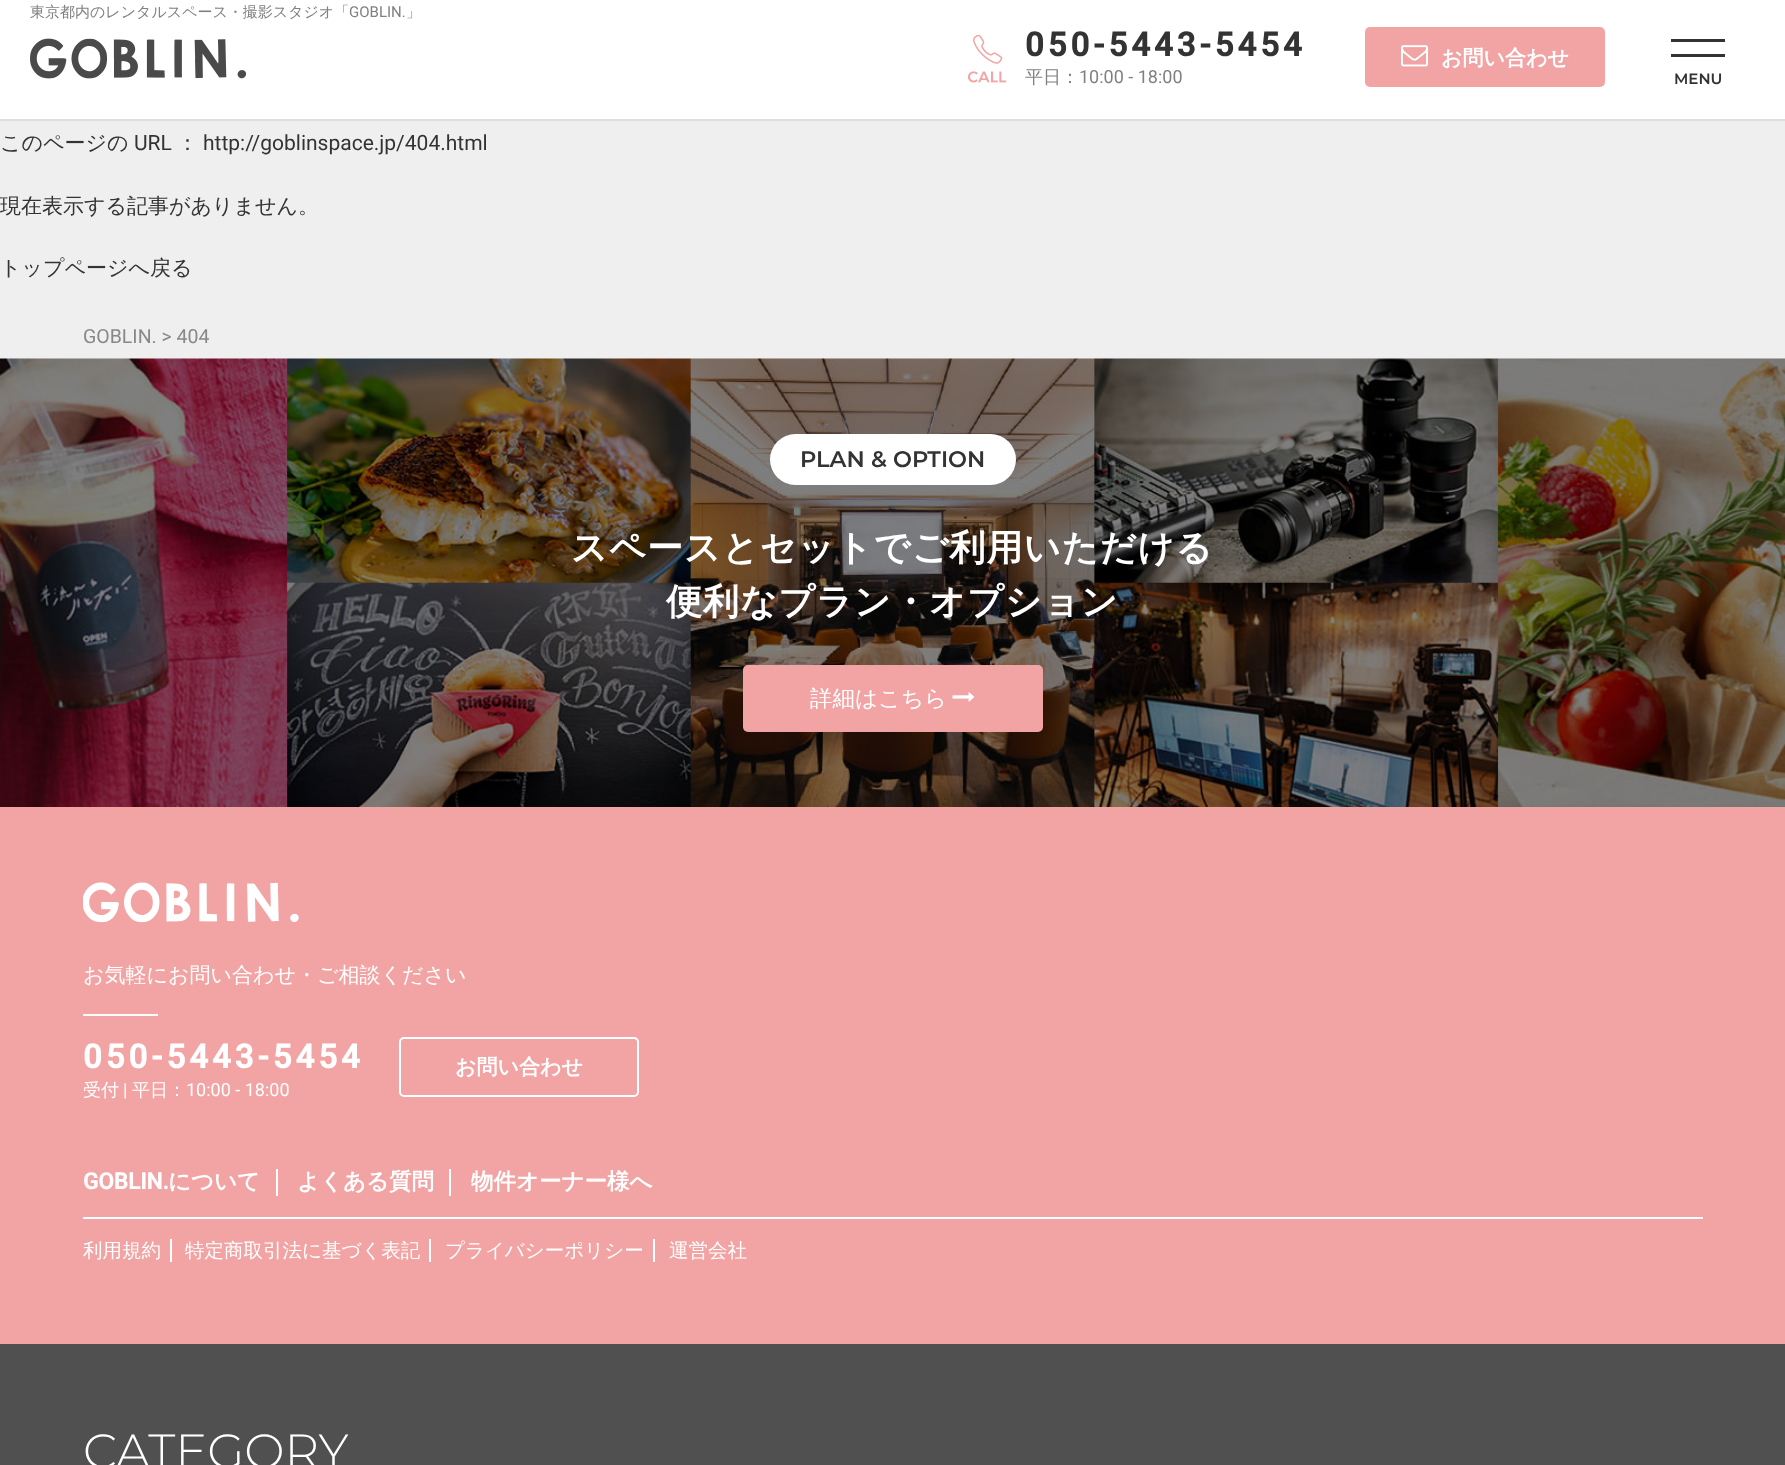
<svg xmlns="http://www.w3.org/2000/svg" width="1785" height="1465">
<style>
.a{font:500 15px WenQuanYi Zen Hei;fill:#808080}
.b{font:15px Roboto;fill:#808080}
.c{font:bold 33px Roboto;letter-spacing:4px;fill:#333}
.d{font:500 18px WenQuanYi Zen Hei;fill:#808080}
.e{font:18px Roboto;fill:#808080}
.f{font:bold 21px WenQuanYi Zen Hei;fill:#fff}
.g{font:600 15px Montserrat;fill:#333}
.h{font:500 21px WenQuanYi Zen Hei;fill:#333}
.i{font:21px Roboto;fill:#333}
.j{font:19.5px Roboto;fill:#888}
.k{font:600 22.5px Montserrat;fill:#333}
.l{font:bold 36px WenQuanYi Zen Hei;letter-spacing:1.1px;fill:#fff}
.m{font:500 22.5px WenQuanYi Zen Hei;fill:#fff}
.n{font:500 21px WenQuanYi Zen Hei;fill:#fff}
.o{font:bold 33px Roboto;letter-spacing:4px;fill:#fff}
.p{font:500 18px WenQuanYi Zen Hei;fill:#fff}
.q{font:18px Roboto;fill:#fff}
.r{font:bold 22.5px Roboto;fill:#fff}
.s{font:bold 22.5px WenQuanYi Zen Hei;fill:#fff}
.t{font:500 19.5px WenQuanYi Zen Hei;fill:#fff}
.u{font:300 48px Montserrat;fill:#fff}
</style>
<rect width="100%" height="100%" fill="#efefef"/>
<path fill="#fff" d="M0 0h1785v119H0z"/>
<path fill="#dedede" d="M0 119h1785v2H0z"/>
<image href="1.png" x="30" y="38" width="216" height="41"/>
<image href="2.png" x="968" y="35" width="39" height="48"/>
<rect fill="#f2a4a4" x="1365" y="27" width="240" height="60" rx="5"/>
<image href="3.png" x="1401" y="45" width="27" height="22"/>
<path fill="#333" d="M1671 39h54v3H1671z"/>
<path fill="#333" d="M1671 54h54v3H1671z"/>
<image href="4.png" x="0" y="358" width="1785" height="449"/>
<rect fill="#fff" x="770" y="434" width="246" height="51" rx="25.5"/>
<rect fill="#f2a4a4" x="743" y="665" width="300" height="67" rx="5"/>
<image href="5.png" x="952" y="692" width="23" height="10"/>
<path fill="#f2a4a4" d="M0 807h1785v537H0z"/>
<image href="6.png" x="83" y="882" width="216" height="41"/>
<path fill="#fff" d="M83 1014h75v2H83z"/>
<rect fill="none" stroke="#fff" stroke-width="2" x="400" y="1038" width="238" height="58" rx="4"/>
<path fill="#fff" d="M83 1217h1620v2H83z"/>
<path fill="#fff" d="M276 1169h2v27H276z"/>
<path fill="#fff" d="M449 1169h2v27H449z"/>
<path fill="#fff" d="M170 1239h2v23H170z"/>
<path fill="#fff" d="M429 1239h2v23H429z"/>
<path fill="#fff" d="M653 1239h2v23H653z"/>
<path fill="#505050" d="M0 1344h1785v121H0z"/>
<text class="a" x="30" y="17">東京都内のレンタルスペース・撮影スタジオ「</text>
<text class="b" x="349" y="17">GOBLIN.</text>
<text class="a" x="406" y="17">」</text>
<text class="c" x="1025" y="56">050-5443-5454</text>
<text class="d" x="1025" y="83">平日：</text>
<text class="e" x="1079" y="83">10:00 - 18:00</text>
<text class="f" x="1441" y="65">お問い合わせ</text>
<text class="g" x="1674" y="84">MENU</text>
<text class="h" x="0" y="150">このページの</text>
<text class="i" x="134" y="150">URL</text>
<text class="h" x="177" y="150">：</text>
<text class="i" x="203" y="150">http://goblinspace.jp/404.html</text>
<text class="h" x="0" y="213">現在表示する記事がありません。</text>
<text class="h" x="0" y="275">トップページへ戻る</text>
<text class="j" x="83" y="343">GOBLIN. &gt; 404</text>
<text class="k" x="800" y="467">PLAN &amp; OPTION</text>
<text class="l" x="571" y="560">スペースとセットでご利用いただける</text>
<text class="l" x="666" y="614">便利なプラン・オプション</text>
<text class="m" x="810" y="706">詳細はこちら</text>
<text class="n" x="83" y="982">お気軽にお問い合わせ・ご相談ください</text>
<text class="o" x="83" y="1068">050-5443-5454</text>
<text class="p" x="83" y="1096">受付</text>
<text class="q" x="123" y="1096">|</text>
<text class="p" x="132" y="1096">平日：</text>
<text class="q" x="186" y="1096">10:00 - 18:00</text>
<text class="f" x="455" y="1074">お問い合わせ</text>
<text class="r" x="83" y="1189">GOBLIN.</text>
<text class="s" x="168" y="1189">について</text>
<text class="s" x="297" y="1189">よくある質問</text>
<text class="s" x="471" y="1189">物件オーナー様へ</text>
<text class="t" x="83" y="1257">利用規約</text>
<text class="t" x="185" y="1257">特定商取引法に基づく表記</text>
<text class="t" x="445" y="1257">プライバシーポリシー</text>
<text class="t" x="669" y="1257">運営会社</text>
<text class="u" x="83" y="1468">CATEGORY</text>
</svg>
